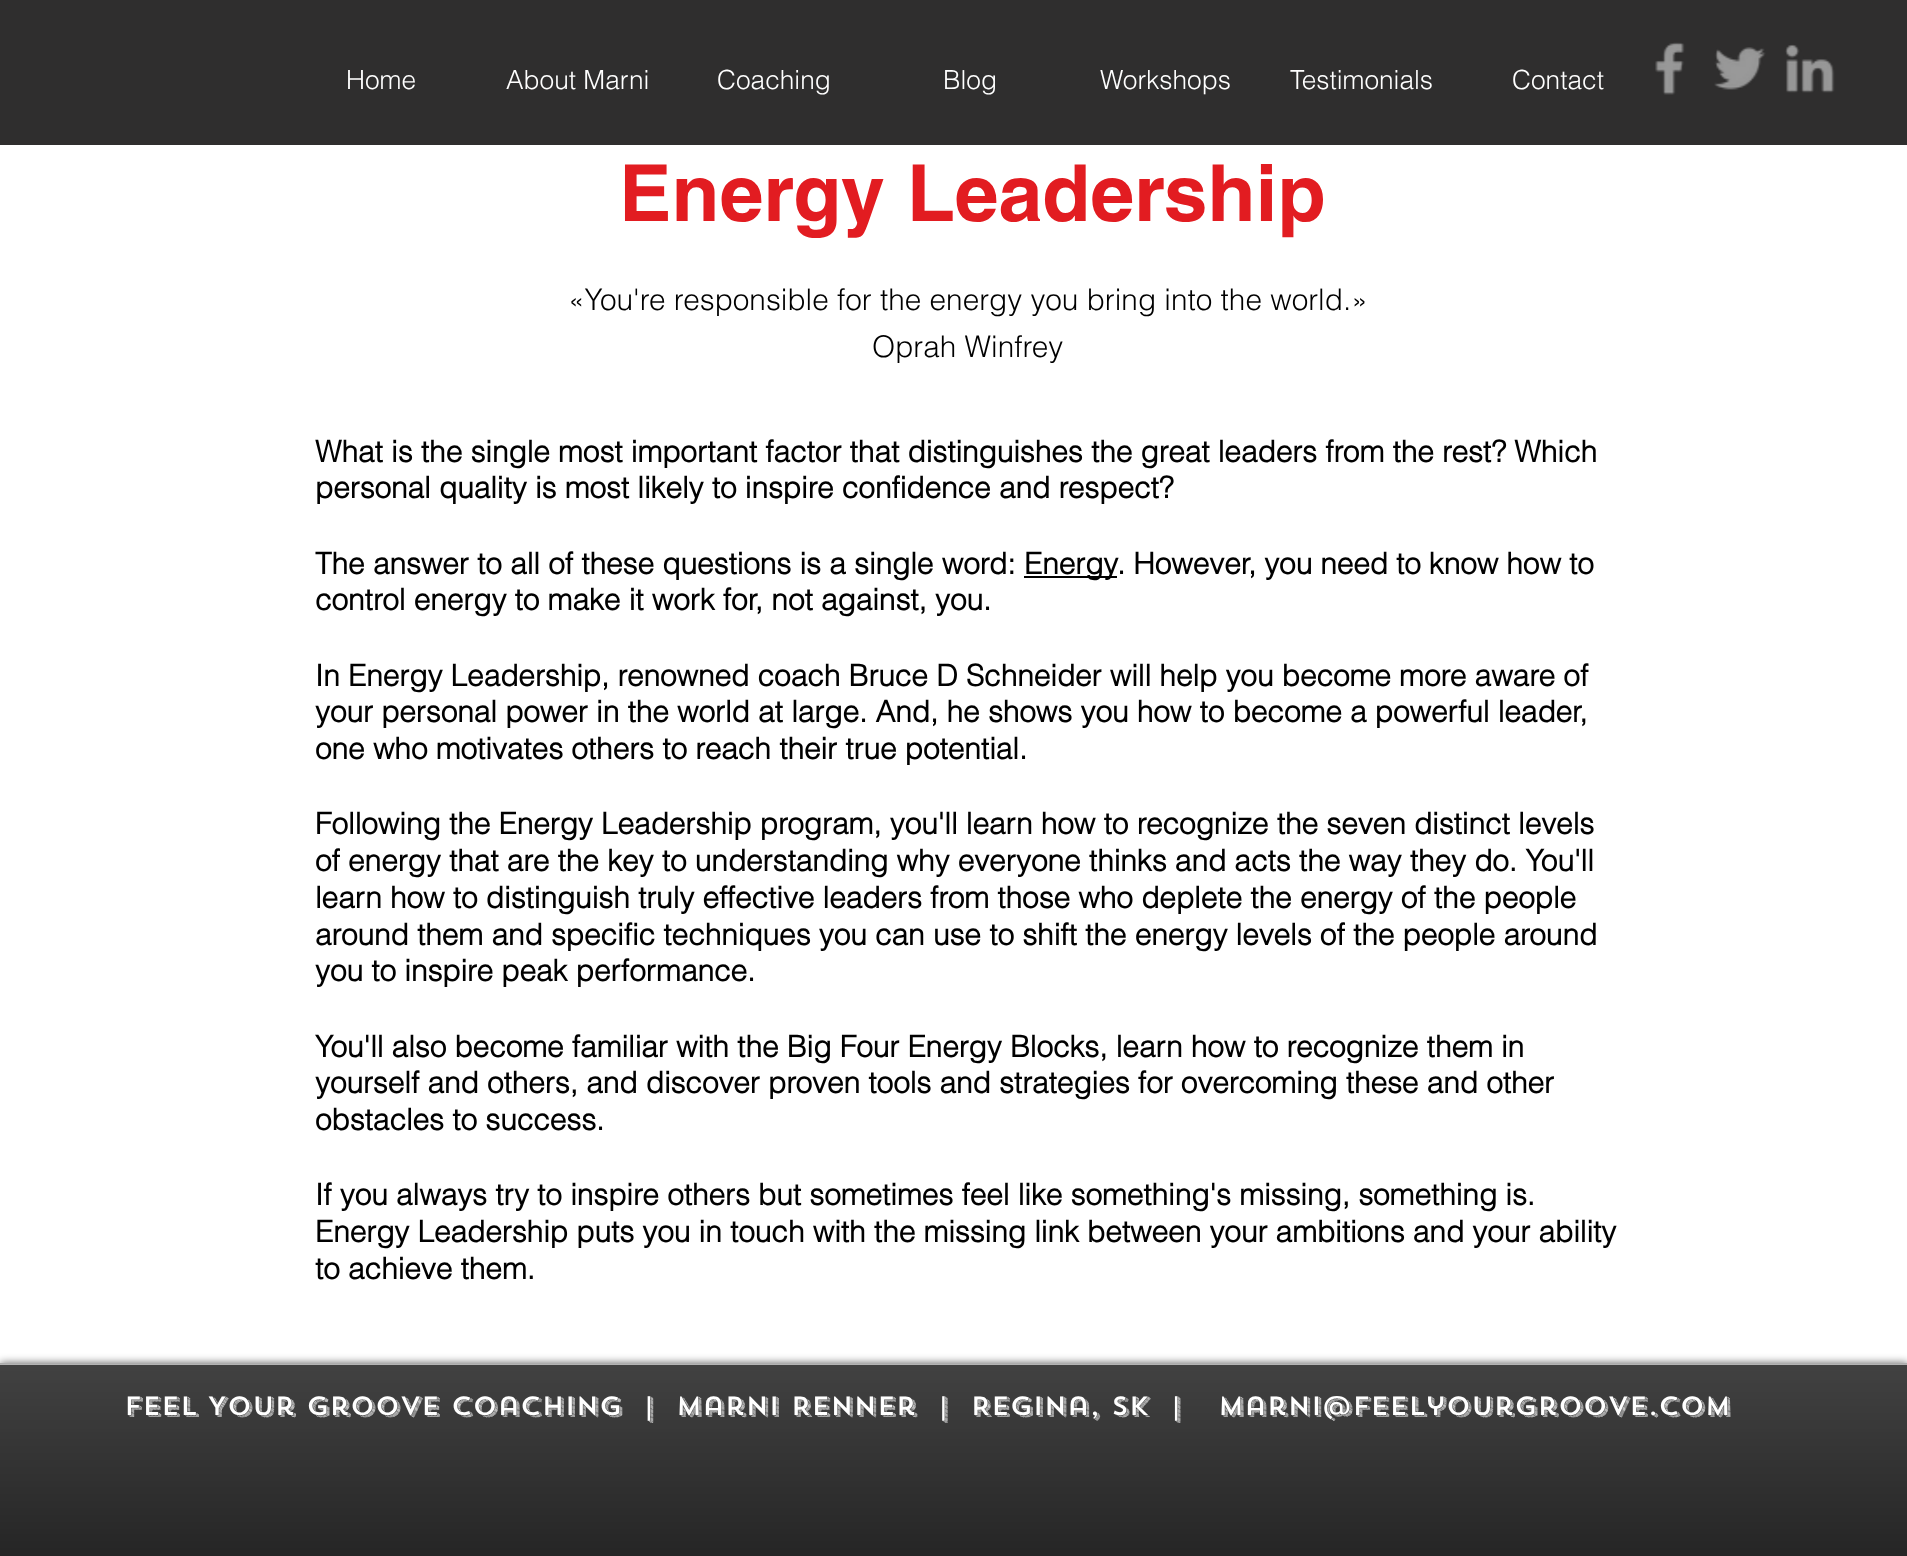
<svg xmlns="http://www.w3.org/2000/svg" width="1907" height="1556">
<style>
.a{font:300 26.25px helvetica;fill:#fff}
.b{font:bold 78.75px helvetica;fill:#e21c21}
.c{font:300 29.75px helvetica;fill:#000}
.d{font:bold 29.75px 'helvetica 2';fill:#000}
.e{font:500 26.25px 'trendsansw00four';fill:#fff}
</style>
<rect width="100%" height="100%" fill="#fff"/>
<path fill="#2f2e2e" d="M0 0h1907v145H0z"/>
<image href="1.png" x="1655" y="42" width="30" height="53"/>
<image href="2.png" x="1714" y="47" width="52" height="43"/>
<image href="3.png" x="1785" y="44" width="50" height="49"/>
<path fill="#000" d="M1024 576h93v2H1024z"/>
<path fill="#00000099" filter="blur(4.5px)" d="M0 1363h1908v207H0z"/>
<path fill="#000" d="M0 1363h1907v193H0z"/>
<image href="4.png" x="0" y="1363" width="1907" height="193"/>
<path fill="#ffffff99" d="M0 1363h1907v2H0z"/>
<text class="a" x="346" y="89">Home</text>
<text class="a" x="506" y="89">About Marni</text>
<text class="a" x="717" y="89">Coaching</text>
<text class="a" x="943" y="89">Blog</text>
<text class="a" x="1100" y="89">Workshops</text>
<text class="a" x="1290" y="89">Testimonials</text>
<text class="a" x="1512" y="89">Contact</text>
<text class="b" x="619" y="221">Energy Leadership</text>
<text class="c" x="568" y="310">«You're responsible for the energy you bring into the world.»</text>
<text class="c" x="872" y="357">Oprah Winfrey</text>
<text class="d" x="315" y="462">What is the single most important factor that distinguishes the great leaders from the rest? Which</text>
<text class="d" x="315" y="498">personal quality is most likely to inspire confidence and respect?</text>
<text class="d" x="315" y="574">The answer to all of these questions is a single word:</text>
<text class="d" x="1024" y="574">Energy</text>
<text class="d" x="1117" y="574" word-spacing="-0.25">. However, you need to know how to</text>
<text class="d" x="315" y="610">control energy to make it work for, not against, you.</text>
<text class="d" x="315" y="686">In Energy Leadership, renowned coach Bruce D Schneider will help you become more aware of</text>
<text class="d" x="315" y="722">your personal power in the world at large. And, he shows you how to become a powerful leader,</text>
<text class="d" x="315" y="759">one who motivates others to reach their true potential.</text>
<text class="d" x="315" y="834">Following the Energy Leadership program, you'll learn how to recognize the seven distinct levels</text>
<text class="d" x="315" y="871">of energy that are the key to understanding why everyone thinks and acts the way they do. You'll</text>
<text class="d" x="315" y="908">learn how to distinguish truly effective leaders from those who deplete the energy of the people</text>
<text class="d" x="315" y="945">around them and specific techniques you can use to shift the energy levels of the people around</text>
<text class="d" x="315" y="981">you to inspire peak performance.</text>
<text class="d" x="315" y="1057">You'll also become familiar with the Big Four Energy Blocks, learn how to recognize them in</text>
<text class="d" x="315" y="1093">yourself and others, and discover proven tools and strategies for overcoming these and other</text>
<text class="d" x="315" y="1130">obstacles to success.</text>
<text class="d" x="315" y="1205">If you always try to inspire others but sometimes feel like something's missing, something is.</text>
<text class="d" x="315" y="1242">Energy Leadership puts you in touch with the missing link between your ambitions and your ability</text>
<text class="d" x="315" y="1279">to achieve them.</text>
<text class="e" xml:space="preserve" x="124" y="1415">Feel Your Groove Coaching  |  Marni Renner  |  Regina, SK  |</text>
<text class="e" x="1218" y="1415">marni@feelyourgroove.com</text>
</svg>
